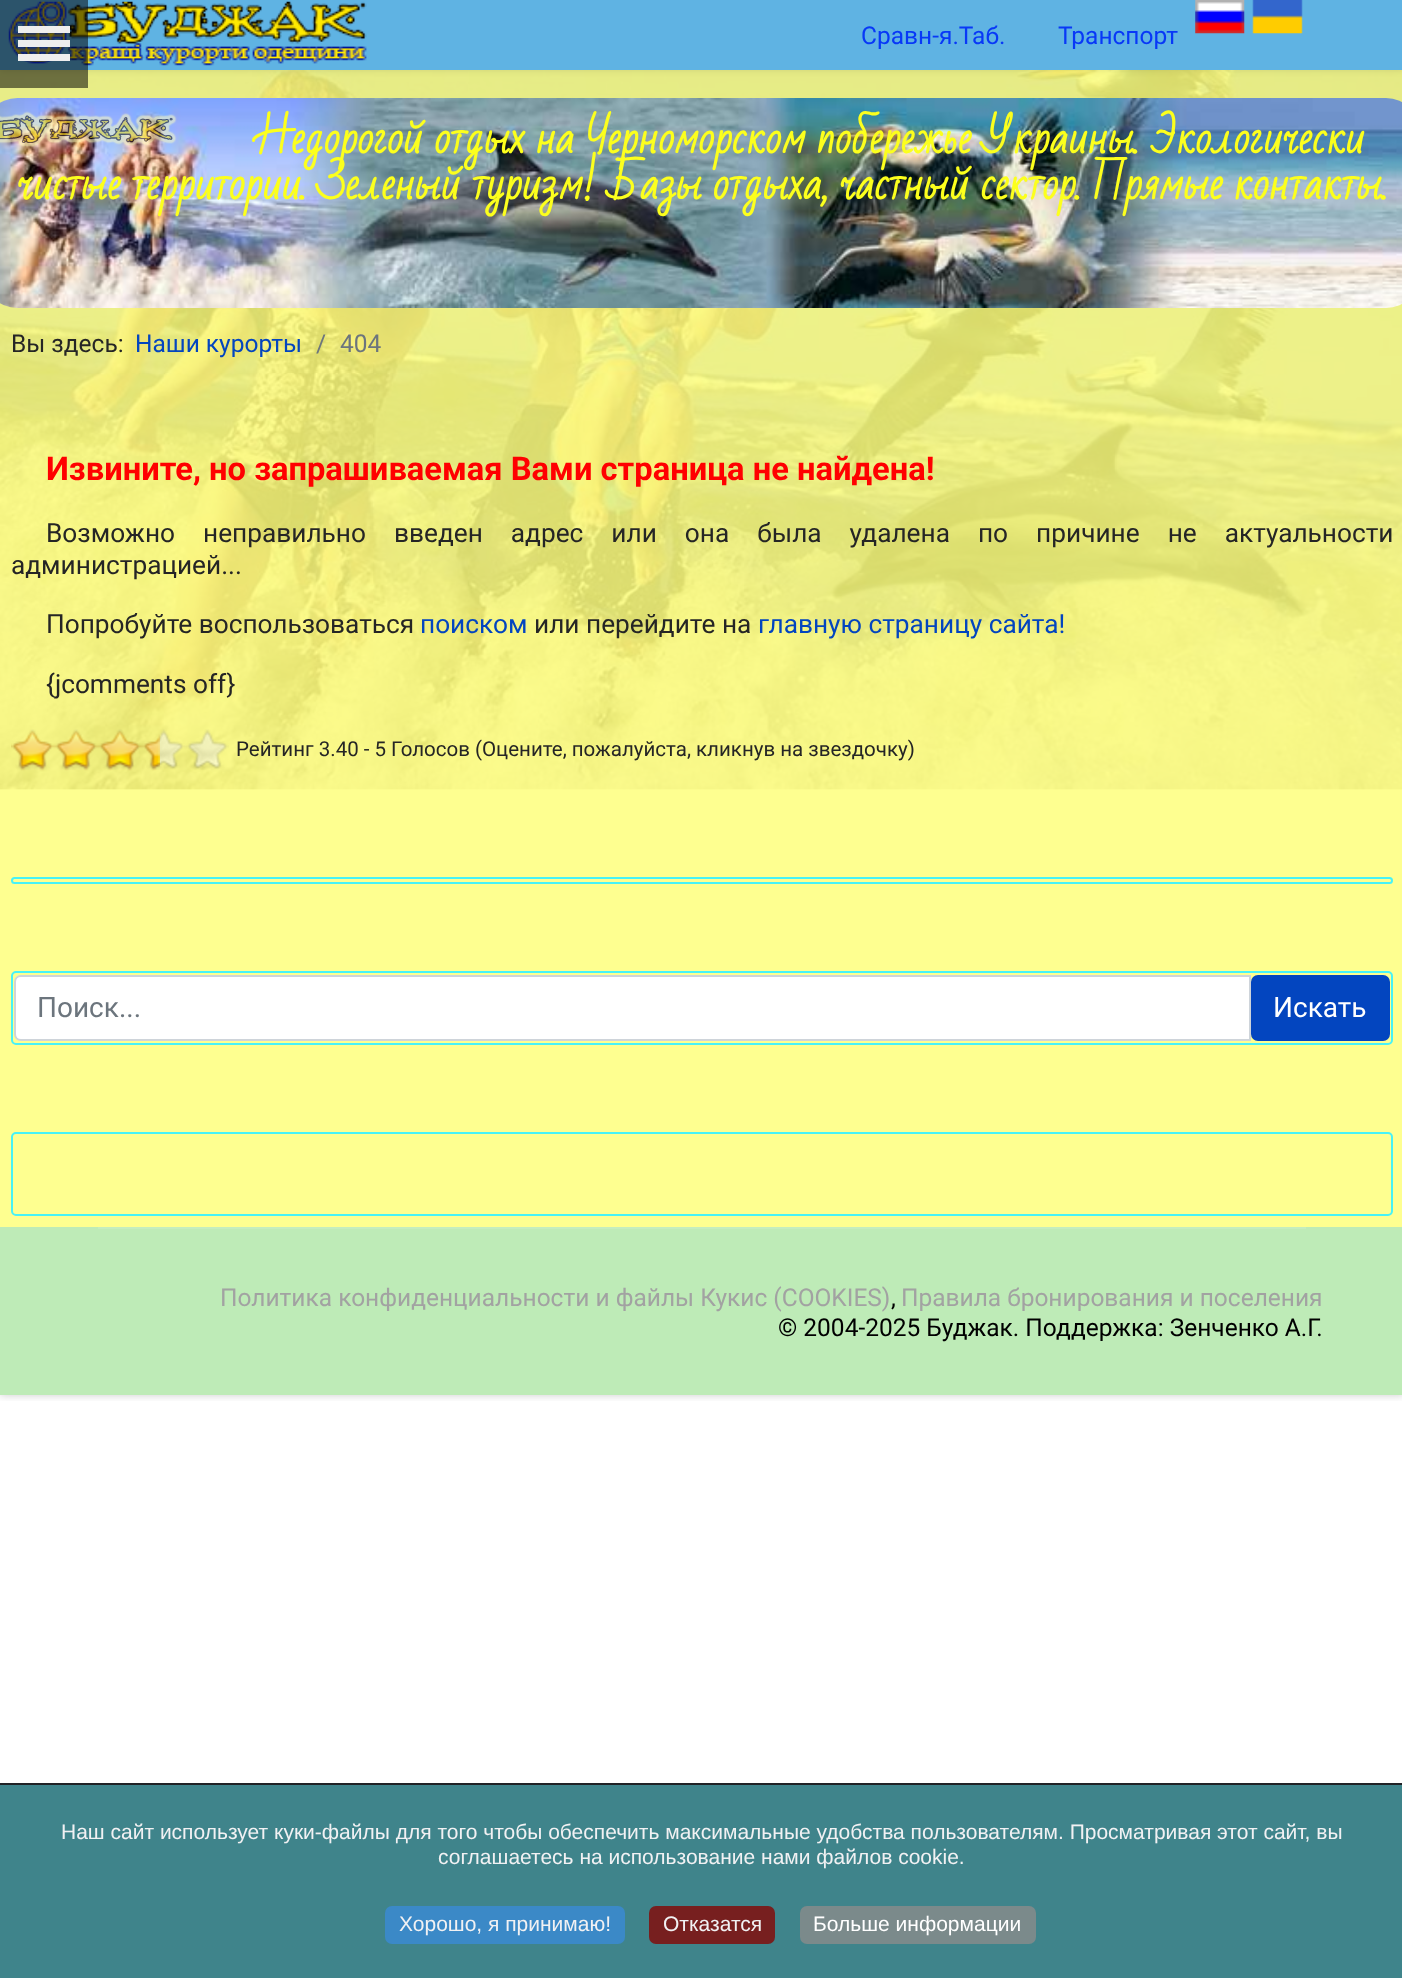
<svg xmlns="http://www.w3.org/2000/svg" width="1402" height="1978">
<style>
.a{font:24.5px Roboto;fill:#0838f7}
.b{font:bold 42px Bad Script;fill:#fcff1d}
.c{font:24.5px Roboto;fill:#252525}
.d{font:24.5px Roboto;fill:#0345bf}
.e{font:24.5px Roboto;fill:#6c757d}
.f{font:bold 32.7px Roboto;fill:#f00}
.g{font:26.25px Roboto;fill:#252525}
.h{font:26.25px Roboto;fill:#0345bf}
.i{font:20.5px Roboto;fill:#252525}
.j{font:28px Roboto;fill:#6c757d}
.k{font:28px Roboto;fill:#fff}
.l{font:24.5px Roboto;fill:#a2a2a2}
.m{font:24.5px Roboto;fill:#000}
.n{font:21px Liberation Sans;fill:#f1f1f3}
.o{font:21px Liberation Sans;fill:#fff}
</style>
<defs>
<clipPath id="clip1"><path d="M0 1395h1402v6H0z"/></clipPath>
</defs>
<rect width="100%" height="100%" fill="#fff"/>
<image href="1.png" x="0" y="70" width="1402" height="720"/>
<g clip-path="url(#clip1)">
<path fill="#00000033" filter="blur(4.5px)" d="M0 0h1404v1395H0z"/>
</g>
<path fill="#feff7cd9" d="M0 70h1402v1157H0z"/>
<path fill="#0000001a" filter="blur(3.5px)" d="M0 0h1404v70H0z"/>
<path fill="#5fb3e3" d="M0 0h1402v70H0z"/>
<image href="2.png" x="8" y="1" width="359" height="65"/>
<path fill="#00000087" d="M0 0h88v88H0z"/>
<path fill="#eee" d="M18 26h52v7H18z"/>
<path fill="#eee" d="M18 40h52v7H18z"/>
<path fill="#eee" d="M18 54h52v7H18z"/>
<image href="3.png" x="1195" y="0" width="50" height="34"/>
<image href="4.png" x="1252" y="0" width="51" height="34"/>
<image href="5.png" x="0" y="98" width="1402" height="210"/>
<image href="6.png" x="0" y="111" width="177" height="37"/>
<image href="7.png" x="11" y="729" width="218" height="41"/>
<image href="8.png" x="11" y="730" width="149" height="41"/>
<rect fill="none" stroke="#47f3f8" stroke-width="2" x="12" y="878" width="1380" height="5" rx="2.5"/>
<rect fill="none" stroke="#47f3f8" stroke-width="2" x="12" y="972" width="1380" height="72" rx="4"/>
<path fill="#fff" stroke="#ced4da" stroke-width="2" d="M21 976h1229v64h-1229c-3.5 0-6-2.5-6-6v-52c0-3.5 2.5-6 6-6z"/>
<rect fill="#0345bf" stroke="#0345bf" stroke-width="2" x="1252" y="976" width="137" height="64" rx="6"/>
<rect fill="none" stroke="#47f3f8" stroke-width="2" x="12" y="1133" width="1380" height="82" rx="4"/>
<path fill="#beebb7" d="M0 1227h1402v168H0z"/>
<path fill="#c5edbe" d="M98 1227h1208v2H98z"/>
<path fill="#3f848b" d="M0 1785h1402v193H0z"/>
<path fill="#202226" d="M0 1783h1402v2H0z"/>
<rect fill="#3b89c7" x="385" y="1906" width="240" height="38" rx="7"/>
<rect fill="#771f1f" x="649" y="1906" width="126" height="38" rx="7"/>
<rect fill="#7b8a8b" x="800" y="1906" width="236" height="38" rx="7"/>
<text class="a" x="861" y="44">Сравн-я.Таб.</text>
<text class="a" x="1058" y="44">Транспорт</text>
<text class="b" x="254" y="153">Недорогой отдых на Черноморском побережье Украины. Экологически</text>
<text class="b" x="17" y="199">чистые территории. Зеленый туризм! Базы отдыха, частный сектор. Прямые контакты.</text>
<text class="c" x="11" y="352">Вы здесь:</text>
<text class="d" x="135" y="352">Наши курорты</text>
<text class="e" x="316" y="352">/</text>
<text class="e" x="340" y="352">404</text>
<text class="f" x="46" y="480">Извините, но запрашиваемая Вами страница не найдена!</text>
<text class="g" x="46" y="542" word-spacing="21.5">Возможно неправильно введен адрес или она была удалена по причине не актуальности</text>
<text class="g" x="11" y="574">администрацией...</text>
<text class="g" x="46" y="633">Попробуйте воспользоваться</text>
<text class="h" x="420" y="633">поиском</text>
<text class="g" x="534" y="633">или перейдите на</text>
<text class="h" x="758" y="633">главную страницу сайта!</text>
<text class="g" x="46" y="693">{jcomments off}</text>
<text class="i" x="236" y="756">Рейтинг 3.40 - 5 Голосов (Оцените, пожалуйста, кликнув на звездочку)</text>
<text class="j" x="37" y="1017">Поиск...</text>
<text class="k" x="1273" y="1017">Искать</text>
<text class="l" x="220" y="1306">Политика конфиденциальности и файлы Кукис (COOKIES)</text>
<text class="m" x="891" y="1306">,</text>
<text class="l" x="901" y="1306">Правила бронирования и поселения</text>
<text class="m" x="778" y="1336">© 2004-2025 Буджак. Поддержка: Зенченко А.Г.</text>
<text class="n" x="61" y="1839">Наш сайт использует куки-файлы для того чтобы обеспечить максимальные удобства пользователям. Просматривая этот сайт, вы</text>
<text class="n" x="438" y="1864">соглашаетесь на использование нами файлов cookie.</text>
<text class="n" x="399" y="1931">Хорошо, я принимаю!</text>
<text class="n" x="663" y="1931">Отказатся</text>
<text class="o" x="813" y="1931">Больше информации</text>
</svg>
